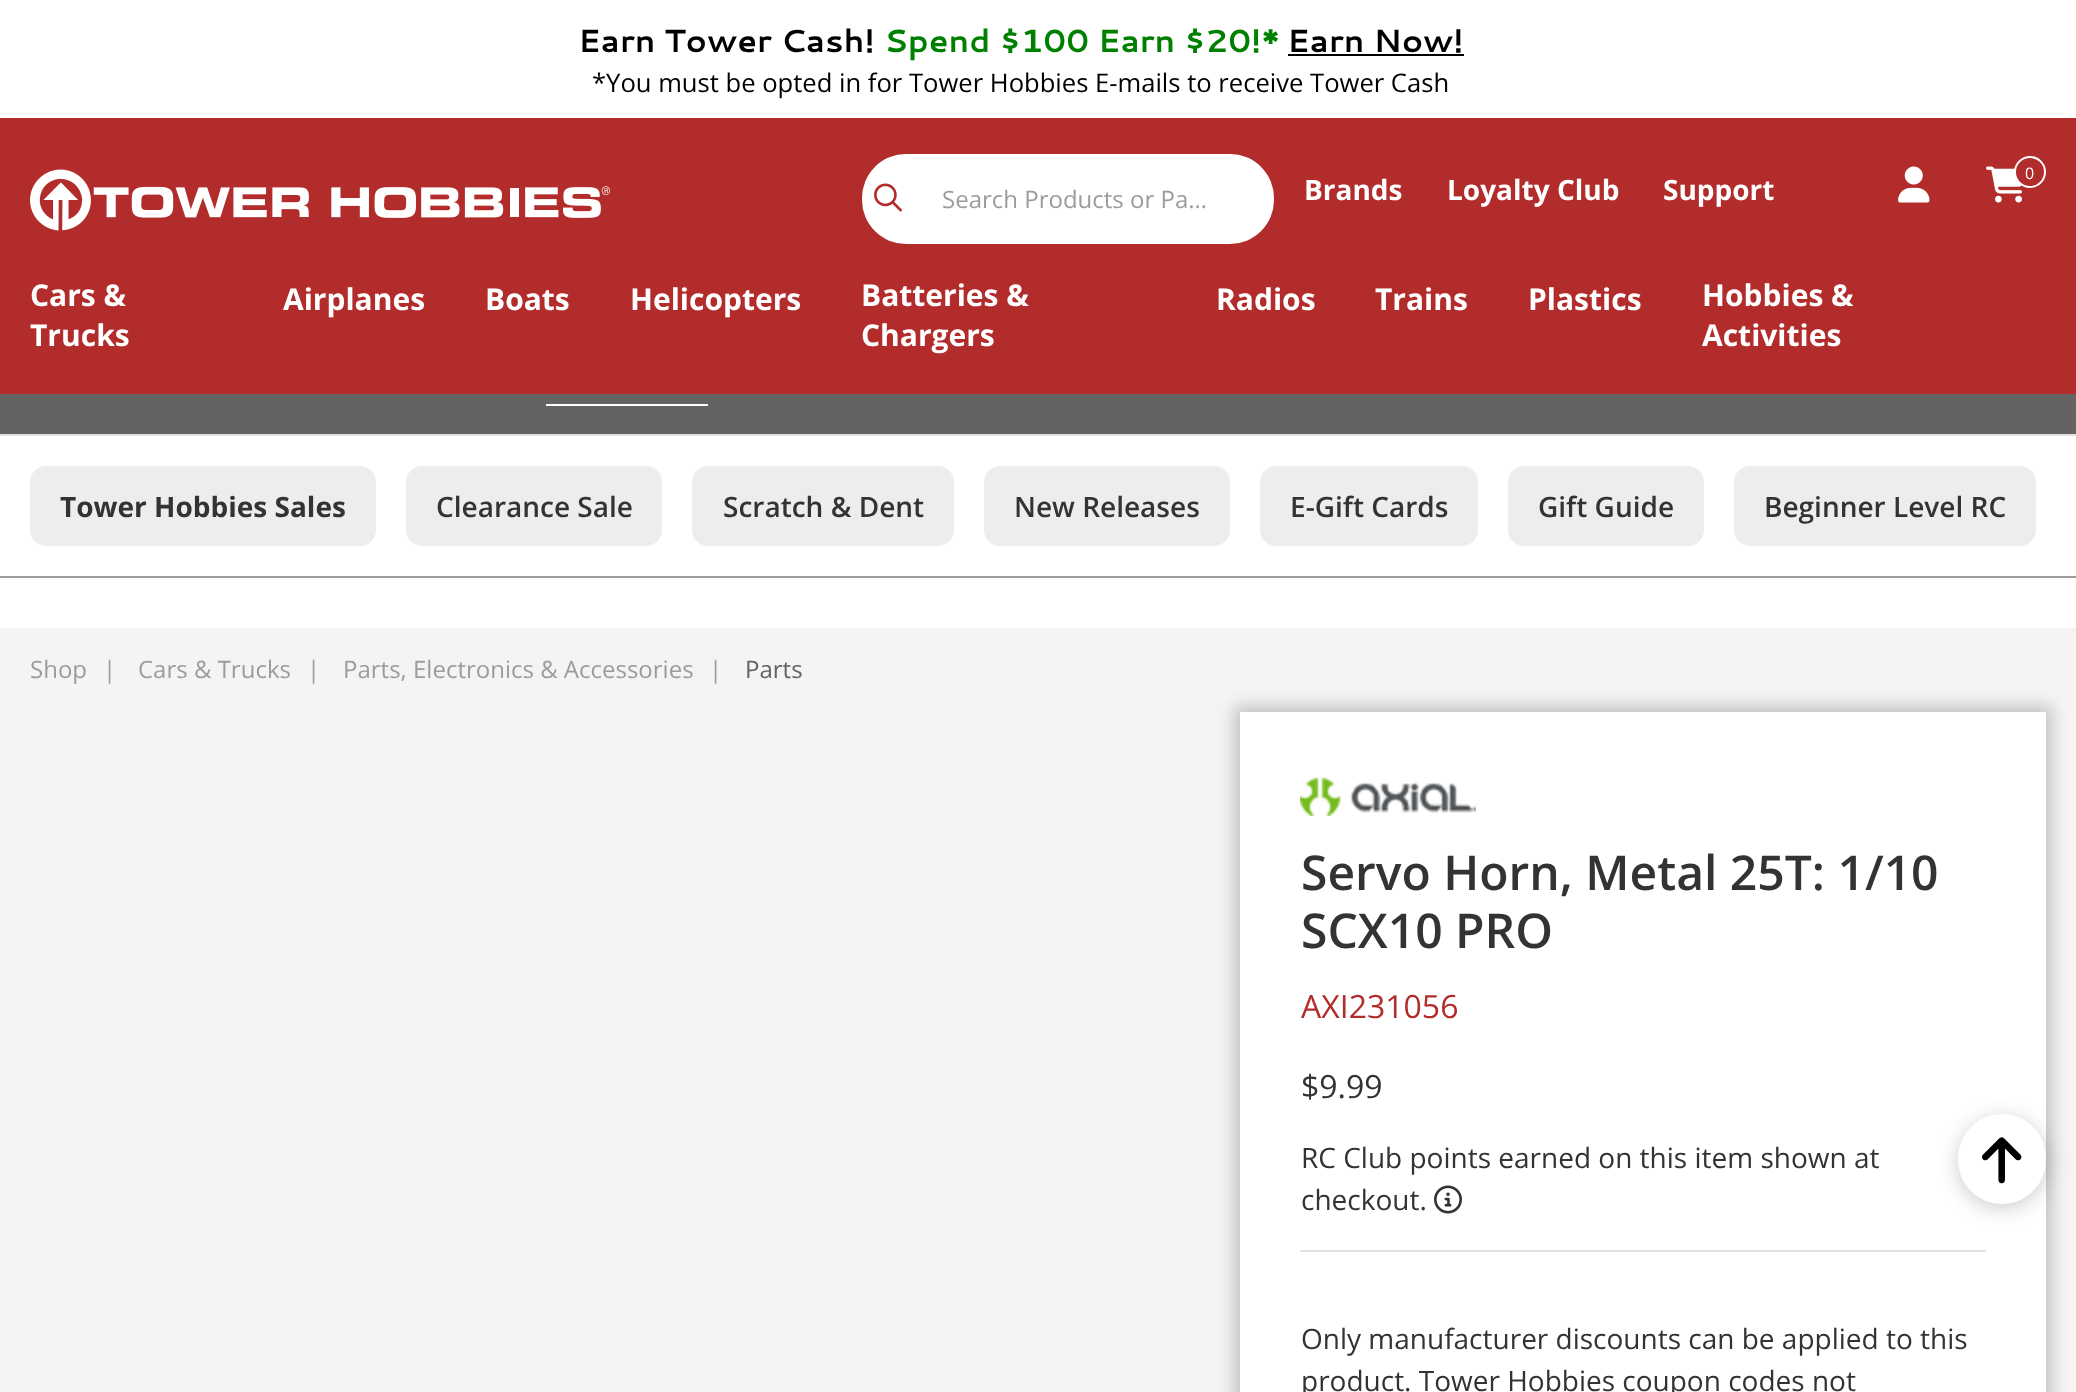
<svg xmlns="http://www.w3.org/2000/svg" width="2076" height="1392">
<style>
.a{font:bold 32px Cantarell;fill:#000}
.b{font:bold 32px Cantarell;fill:#008000}
.c{font:25.6px Open Sans;fill:#000}
.d{font:16px Open Sans;fill:#fff}
.e{font:bold 28px Open Sans;fill:#fff}
.f{font:bold 30px Open Sans;fill:#fff}
.g{font:24px Open Sans;fill:#9c9c9c}
.h{font:bold 28px Open Sans;fill:#333}
.i{font:600 28px Open Sans;fill:#333}
.j{font:24px Open Sans;fill:#636363}
.k{font:600 48px Open Sans;fill:#333}
.l{font:32px Open Sans;fill:#b22c2b}
.m{font:32px Open Sans;fill:#333}
.n{font:28px Open Sans;fill:#333}
</style>
<rect width="100%" height="100%" fill="#fff"/>
<path fill="#000" d="M1288 54h176v2H1288z"/>
<path fill="#b22c2b" d="M0 118h2076v276H0z"/>
<image href="1.png" x="1898" y="166" width="32" height="37"/>
<image href="2.png" x="1986" y="166" width="36" height="37"/>
<circle fill="#b22c2b" stroke="#fff" stroke-width="2" cx="2030" cy="172" r="15"/>
<rect fill="#fff" x="862" y="154" width="412" height="90" rx="44"/>
<image href="3.png" x="874" y="183" width="28" height="29"/>
<image href="4.png" x="30" y="169" width="580" height="62"/>
<path fill="#636363" d="M0 394h2076v40H0z"/>
<path fill="#e1e1e1" d="M0 434h2076v2H0z"/>
<path fill="#fff" d="M546 404h162v2H546z"/>
<path fill="#9c9c9c" d="M0 576h2076v2H0z"/>
<rect fill="#ededed" x="30" y="466" width="346" height="80" rx="16"/>
<rect fill="#ededed" x="406" y="466" width="256" height="80" rx="16"/>
<rect fill="#ededed" x="692" y="466" width="262" height="80" rx="16"/>
<rect fill="#ededed" x="984" y="466" width="246" height="80" rx="16"/>
<rect fill="#ededed" x="1260" y="466" width="218" height="80" rx="16"/>
<rect fill="#ededed" x="1508" y="466" width="196" height="80" rx="16"/>
<rect fill="#ededed" x="1734" y="466" width="302" height="80" rx="16"/>
<path fill="#f4f4f4" d="M0 628h2076v764H0z"/>
<path fill="#00000033" filter="blur(8px)" d="M1234 706h818v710H1234z"/>
<path fill="#fff" d="M1240 712h806v680H1240z"/>
<image href="5.png" x="1300" y="777" width="176" height="39"/>
<image href="6.png" x="1434" y="1185" width="28" height="29"/>
<path fill="#e1e1e1" d="M1300 1250h686v2H1300z"/>
<rect fill="#00000033" filter="blur(10px)" x="1958" y="1118" width="88" height="90" rx="44"/>
<rect fill="#fff" x="1958" y="1114" width="88" height="90" rx="44"/>
<image href="7.png" x="1982" y="1137" width="40" height="47"/>
<text class="a" x="578" y="52">Earn Tower Cash!</text>
<text class="b" x="884" y="52">Spend $100 Earn $20!*</text>
<text class="a" x="1287" y="52">Earn Now!</text>
<text class="c" x="592" y="92">*You must be opted in for Tower Hobbies E-mails to receive Tower Cash</text>
<text class="d" x="2025" y="179">0</text>
<text class="e" x="1304" y="200">Brands</text>
<text class="e" x="1447" y="200">Loyalty Club</text>
<text class="e" x="1663" y="200">Support</text>
<text class="f" x="30" y="306">Cars &amp;</text>
<text class="f" x="30" y="346">Trucks</text>
<text class="f" x="283" y="310">Airplanes</text>
<text class="f" x="485" y="310">Boats</text>
<text class="f" x="630" y="310">Helicopters</text>
<text class="f" x="861" y="306">Batteries &amp;</text>
<text class="f" x="861" y="346">Chargers</text>
<text class="f" x="1216" y="310">Radios</text>
<text class="f" x="1375" y="310">Trains</text>
<text class="f" x="1528" y="310">Plastics</text>
<text class="f" x="1702" y="306">Hobbies &amp;</text>
<text class="f" x="1702" y="346">Activities</text>
<text class="g" x="942" y="208">Search Products or Pa…</text>
<text class="h" x="60" y="517">Tower Hobbies Sales</text>
<text class="i" x="436" y="517">Clearance Sale</text>
<text class="i" x="723" y="517">Scratch &amp; Dent</text>
<text class="i" x="1014" y="517">New Releases</text>
<text class="i" x="1290" y="517">E-Gift Cards</text>
<text class="i" x="1538" y="517">Gift Guide</text>
<text class="i" x="1764" y="517">Beginner Level RC</text>
<text class="g" x="30" y="678">Shop</text>
<text class="g" x="103" y="678">|</text>
<text class="g" x="138" y="678">Cars &amp; Trucks</text>
<text class="g" x="307" y="678">|</text>
<text class="g" x="343" y="678">Parts, Electronics &amp; Accessories</text>
<text class="g" x="709" y="678">|</text>
<text class="j" x="745" y="678">Parts</text>
<text class="k" x="1301" y="890">Servo Horn, Metal 25T: 1/10</text>
<text class="k" x="1301" y="948">SCX10 PRO</text>
<text class="l" x="1301" y="1018">AXI231056</text>
<text class="m" x="1301" y="1098">$9.99</text>
<text class="n" x="1301" y="1168">RC Club points earned on this item shown at</text>
<text class="n" x="1301" y="1210">checkout.</text>
<text class="n" x="1301" y="1349">Only manufacturer discounts can be applied to this</text>
<text class="n" x="1301" y="1391">product. Tower Hobbies coupon codes not</text>
</svg>
